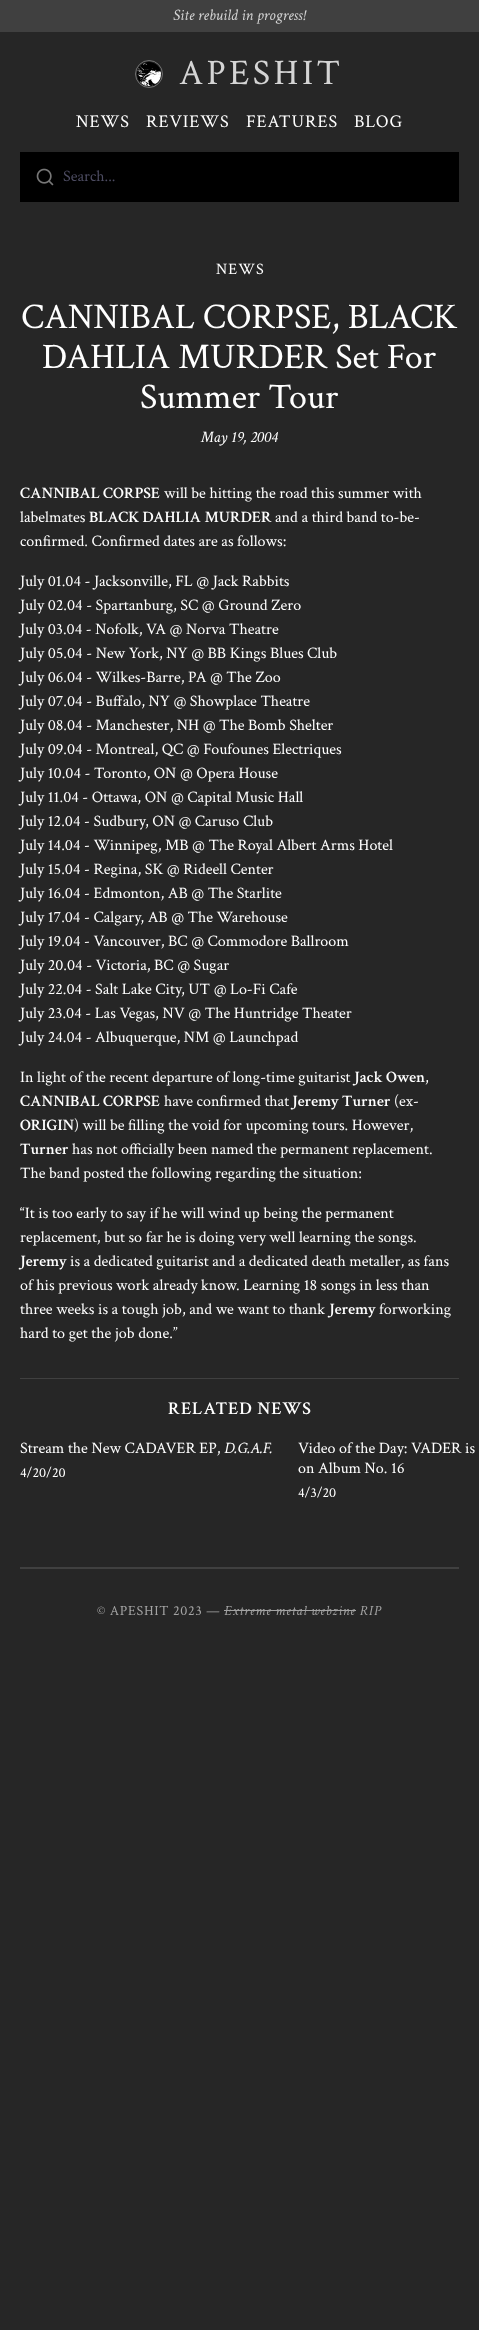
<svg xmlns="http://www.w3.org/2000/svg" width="479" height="2330">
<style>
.a{font:italic 16px Crimson Text;fill:#d4d4d4}
.b{font:36px Crimson Text;letter-spacing:3.5px;fill:#d4d4d4}
.c{font:18px Crimson Text;letter-spacing:0.9px;fill:#fff}
.d{font:16px Crimson Text;fill:#4d4c62}
.e{font:16px Crimson Text;letter-spacing:1px;fill:#fff}
.f{font:36px Crimson Text;fill:#fff}
.g{font:italic 16px Crimson Text;fill:#fff}
.h{font:600 16px Crimson Text;fill:#fff}
.i{font:16px Crimson Text;fill:#fff}
.j{font:600 18px Crimson Text;letter-spacing:0.9px;fill:#fff}
.k{font:14px Crimson Text;fill:#fff}
.l{font:14px Crimson Text;letter-spacing:0.7px;fill:#a3a3a3}
.m{font:italic 14px Crimson Text;letter-spacing:0.7px;fill:#a3a3a3}
</style>
<rect width="100%" height="100%" fill="#262626"/>
<path fill="#404040" d="M0 0h479v32H0z"/>
<circle fill="none" stroke="#737373" cx="149" cy="74" r="13.5"/>
<image href="1.png" x="137" y="62" width="24" height="24"/>
<path fill="#000" d="M20 152h439v50H20z"/>
<image href="2.png" x="36" y="168" width="18" height="18"/>
<path fill="#404040" d="M20 1378h439v1H20z"/>
<path fill="#404040" d="M20 1567h439v2H20z"/>
<path fill="#a3a3a3" d="M224 1610h132v1H224z"/>
<text class="a" x="173" y="20">Site rebuild in progress!</text>
<text class="b" x="179" y="84">APESHIT</text>
<text class="c" x="76" y="127">NEWS</text>
<text class="c" x="146" y="127">REVIEWS</text>
<text class="c" x="246" y="127">FEATURES</text>
<text class="c" x="354" y="127">BLOG</text>
<text class="d" x="63" y="181">Search...</text>
<text class="e" x="216" y="274">NEWS</text>
<text class="f" x="21" y="328">CANNIBAL CORPSE, BLACK</text>
<text class="f" x="42" y="368">DAHLIA MURDER Set For</text>
<text class="f" x="140" y="408">Summer Tour</text>
<text class="g" x="201" y="442">May 19, 2004</text>
<text class="h" x="20" y="498">CANNIBAL CORPSE</text>
<text class="i" x="164" y="498">will be hitting the road this summer with</text>
<text class="i" x="20" y="522">labelmates</text>
<text class="h" x="89" y="522">BLACK DAHLIA MURDER</text>
<text class="i" x="275" y="522">and a third band to-be-</text>
<text class="i" x="20" y="546">confirmed. Confirmed dates are as follows:</text>
<text class="i" x="20" y="586">July 01.04 - Jacksonville, FL @ Jack Rabbits</text>
<text class="i" x="20" y="610">July 02.04 - Spartanburg, SC @ Ground Zero</text>
<text class="i" x="20" y="634">July 03.04 - Nofolk, VA @ Norva Theatre</text>
<text class="i" x="20" y="658">July 05.04 - New York, NY @ BB Kings Blues Club</text>
<text class="i" x="20" y="682">July 06.04 - Wilkes-Barre, PA @ The Zoo</text>
<text class="i" x="20" y="706">July 07.04 - Buffalo, NY @ Showplace Theatre</text>
<text class="i" x="20" y="730">July 08.04 - Manchester, NH @ The Bomb Shelter</text>
<text class="i" x="20" y="754">July 09.04 - Montreal, QC @ Foufounes Electriques</text>
<text class="i" x="20" y="778">July 10.04 - Toronto, ON @ Opera House</text>
<text class="i" x="20" y="802">July 11.04 - Ottawa, ON @ Capital Music Hall</text>
<text class="i" x="20" y="826">July 12.04 - Sudbury, ON @ Caruso Club</text>
<text class="i" x="20" y="850">July 14.04 - Winnipeg, MB @ The Royal Albert Arms Hotel</text>
<text class="i" x="20" y="874">July 15.04 - Regina, SK @ Rideell Center</text>
<text class="i" x="20" y="898">July 16.04 - Edmonton, AB @ The Starlite</text>
<text class="i" x="20" y="922">July 17.04 - Calgary, AB @ The Warehouse</text>
<text class="i" x="20" y="946">July 19.04 - Vancouver, BC @ Commodore Ballroom</text>
<text class="i" x="20" y="970">July 20.04 - Victoria, BC @ Sugar</text>
<text class="i" x="20" y="994">July 22.04 - Salt Lake City, UT @ Lo-Fi Cafe</text>
<text class="i" x="20" y="1018">July 23.04 - Las Vegas, NV @ The Huntridge Theater</text>
<text class="i" x="20" y="1042">July 24.04 - Albuquerque, NM @ Launchpad</text>
<text class="i" x="20" y="1082">In light of the recent departure of long-time guitarist</text>
<text class="h" x="354" y="1082">Jack Owen</text>
<text class="i" x="425" y="1082">,</text>
<text class="h" x="20" y="1106">CANNIBAL CORPSE</text>
<text class="i" x="164" y="1106">have confirmed that</text>
<text class="h" x="292" y="1106">Jeremy Turner</text>
<text class="i" x="394" y="1106">(ex-</text>
<text class="h" x="20" y="1130">ORIGIN</text>
<text class="i" x="74" y="1130">) will be filling the void for upcoming tours. However,</text>
<text class="h" x="20" y="1154">Turner</text>
<text class="i" x="72" y="1154">has not officially been named the permanent replacement.</text>
<text class="i" x="20" y="1178">The band posted the following regarding the situation:</text>
<text class="i" x="20" y="1218">“It is too early to say if he will wind up being the permanent</text>
<text class="i" x="20" y="1242">replacement, but so far he is doing very well learning the songs.</text>
<text class="h" x="20" y="1266">Jeremy</text>
<text class="i" x="70" y="1266">is a dedicated guitarist and a dedicated death metaller, as fans</text>
<text class="i" x="20" y="1290">of his previous work already know. Learning 18 songs in less than</text>
<text class="i" x="20" y="1314">three weeks is a tough job, and we want to thank</text>
<text class="h" x="329" y="1314">Jeremy</text>
<text class="i" x="379" y="1314">forworking</text>
<text class="i" x="20" y="1338">hard to get the job done.”</text>
<text class="j" x="168" y="1414">RELATED NEWS</text>
<text class="i" x="20" y="1453">Stream the New CADAVER EP,</text>
<text class="g" x="224" y="1453">D.G.A.F.</text>
<text class="k" x="20" y="1477">4/20/20</text>
<text class="i" x="298" y="1453">Video of the Day: VADER is</text>
<text class="i" x="298" y="1473">on Album No. 16</text>
<text class="k" x="298" y="1497">4/3/20</text>
<text class="l" x="97" y="1615">© APESHIT 2023 —</text>
<text class="m" x="224" y="1615">Extreme metal webzine RIP</text>
</svg>
